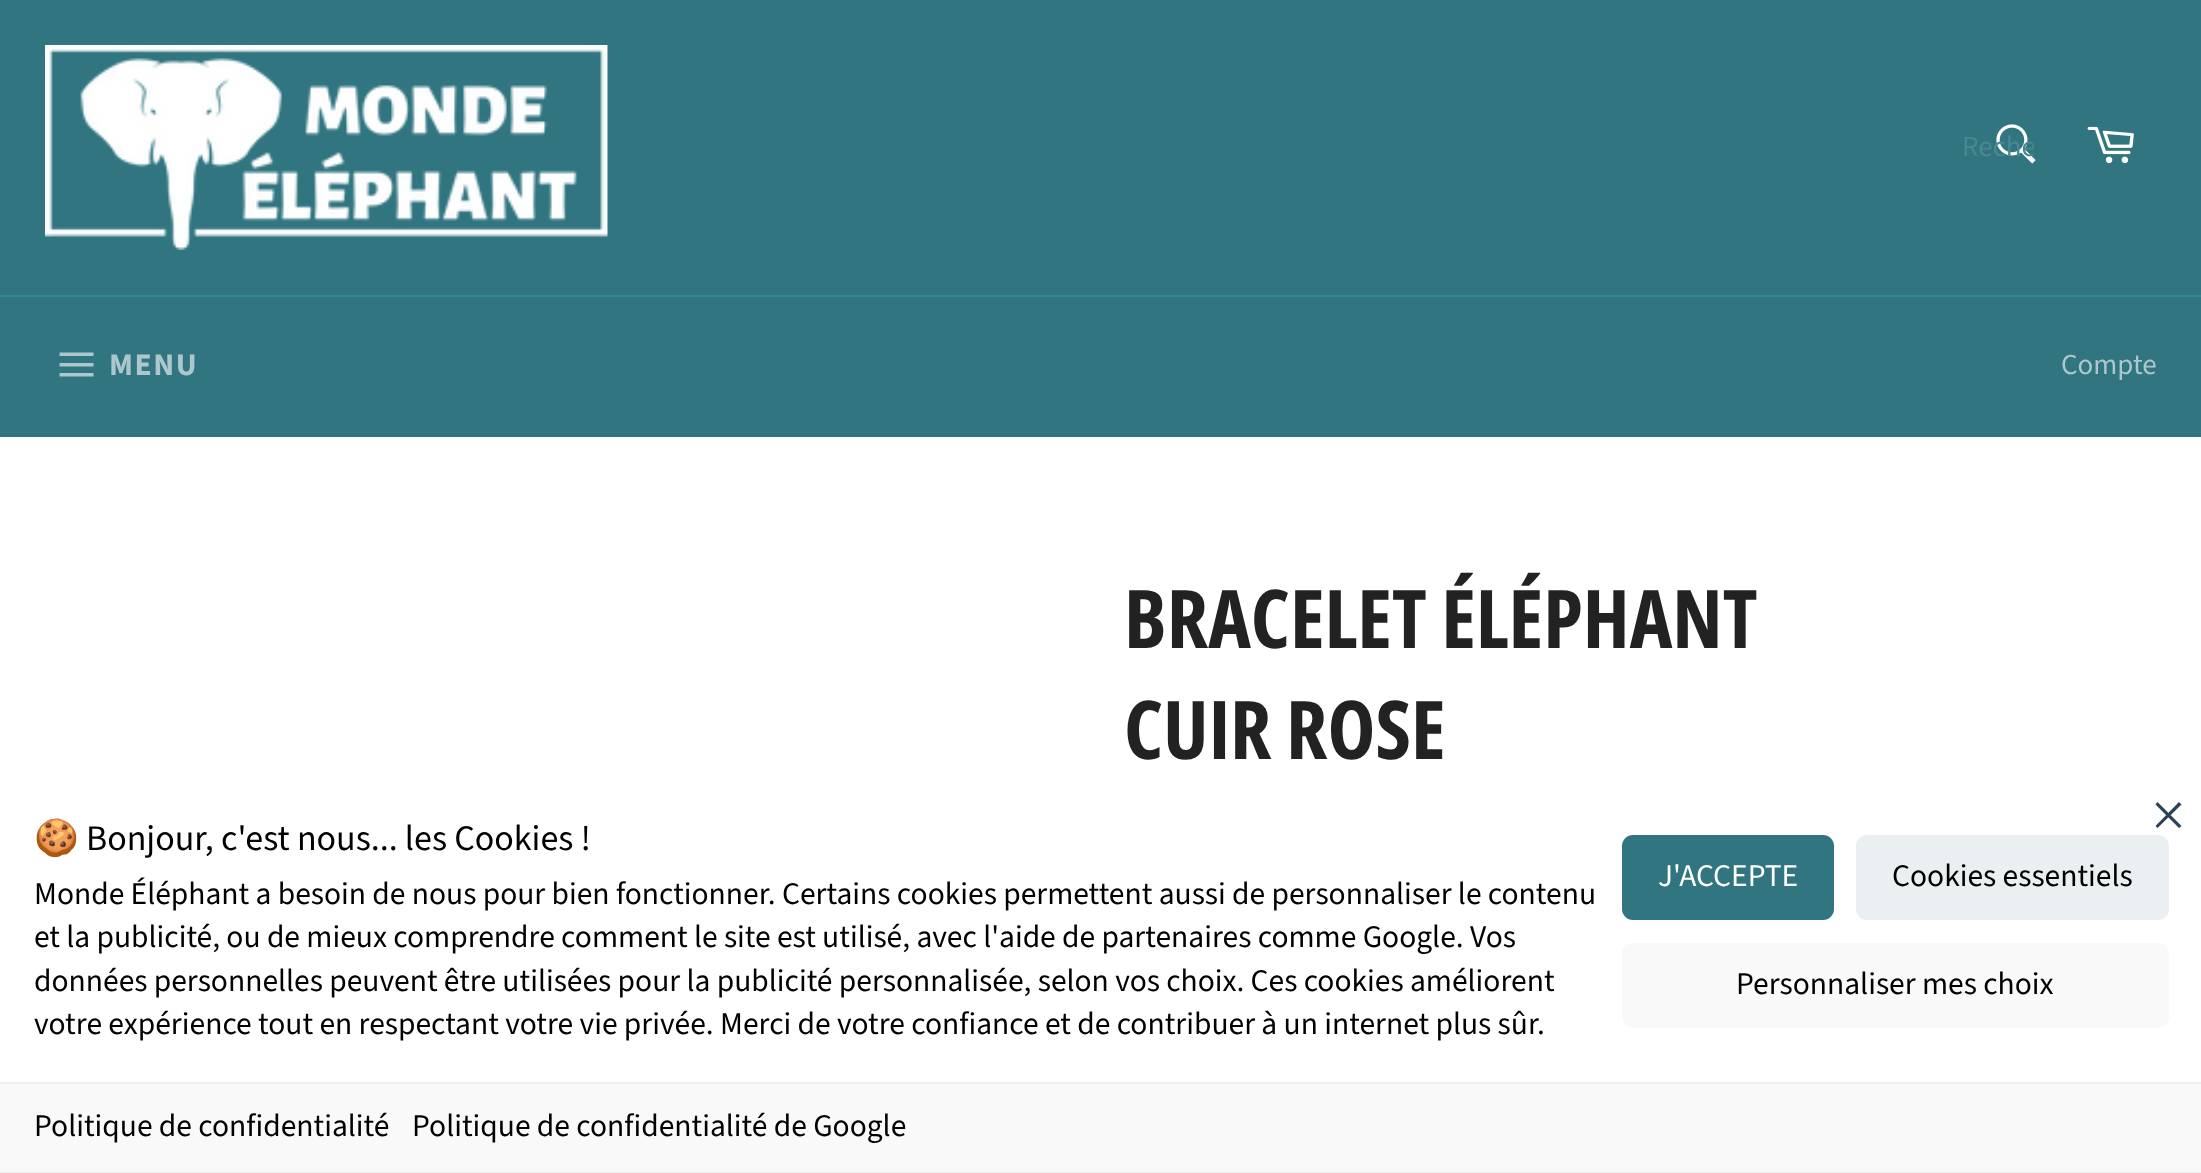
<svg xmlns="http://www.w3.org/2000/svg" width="2201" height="1173">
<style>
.a{font:29px Source Sans Pro;fill:#4a8790}
.b{font:bold 31.5px Source Sans Pro;letter-spacing:1.5px;fill:#acc8cc}
.c{font:29px Source Sans Pro;fill:#acc8cc}
.d{font:bold 81px Open Sans Condensed;fill:#222}
.e{font:36px Noto Color Emoji;fill:#000}
.f{font:36px Source Sans Pro;fill:#000}
.g{font:31.5px Source Sans Pro;fill:#000}
.h{font:31.5px Source Sans Pro;fill:#fff}
</style>
<defs>
<clipPath id="clip1"><path d="M1962 128h72v41H1962z"/></clipPath>
</defs>
<rect width="100%" height="100%" fill="#307580"/>
<image href="1.png" x="45" y="45" width="563" height="205"/>
<image href="2.png" x="1996" y="124" width="40" height="40"/>
<image href="3.png" x="2087" y="126" width="47" height="38"/>
<path fill="#378693" d="M0 295h2201v2H0z"/>
<path fill="#acc8cc" d="M59.5 363h34v3.5h-34zm0-10.5h34v3.5h-34zm0 20.5h34v3.5h-34z"/>
<path fill="#fff" d="M0 437h2201v645H0z"/>
<rect fill="#307580" x="1622" y="835" width="212" height="85" rx="11"/>
<rect fill="#eaeff2" x="1856" y="835" width="313" height="85" rx="11"/>
<rect fill="#f9f9f9" x="1622" y="943" width="547" height="85" rx="11"/>
<path fill="#2d4156" d="M2179 802l2.5 2.5l-24 23.5l-2-2z"/>
<path fill="#2d4156" d="M2155.5 804.5l2-2.5l24 24l-2.5 2z"/>
<path fill="#f9f9f9" d="M0 1084h2201v88H0z"/>
<path fill="#eee" d="M0 1082h2201v2H0z"/>
<path fill="#eee" d="M0 1172h2201v1H0z"/>
<g clip-path="url(#clip1)">
<text class="a" x="1962" y="156">Reche</text>
</g>
<text class="b" x="109" y="375">MENU</text>
<text class="c" x="2061" y="374">Compte</text>
<text class="d" x="1124" y="648">BRACELET ÉLÉPHANT</text>
<text class="d" x="1124" y="759">CUIR ROSE</text>
<text class="e" x="34" y="850">🍪</text>
<text class="f" x="86" y="850">Bonjour, c'est nous... les Cookies !</text>
<text class="g" x="34" y="904">Monde Éléphant a besoin de nous pour bien fonctionner. Certains cookies permettent aussi de personnaliser le contenu</text>
<text class="g" x="34" y="947">et la publicité, ou de mieux comprendre comment le site est utilisé, avec l'aide de partenaires comme Google. Vos</text>
<text class="g" x="34" y="991">données personnelles peuvent être utilisées pour la publicité personnalisée, selon vos choix. Ces cookies améliorent</text>
<text class="g" x="34" y="1034">votre expérience tout en respectant votre vie privée. Merci de votre confiance et de contribuer à un internet plus sûr.</text>
<text class="h" x="1658" y="886">J'ACCEPTE</text>
<text class="g" x="1892" y="886">Cookies essentiels</text>
<text class="g" x="1736" y="994">Personnaliser mes choix</text>
<text class="g" x="34" y="1136">Politique de confidentialité</text>
<text class="g" x="412" y="1136">Politique de confidentialité de Google</text>
</svg>
